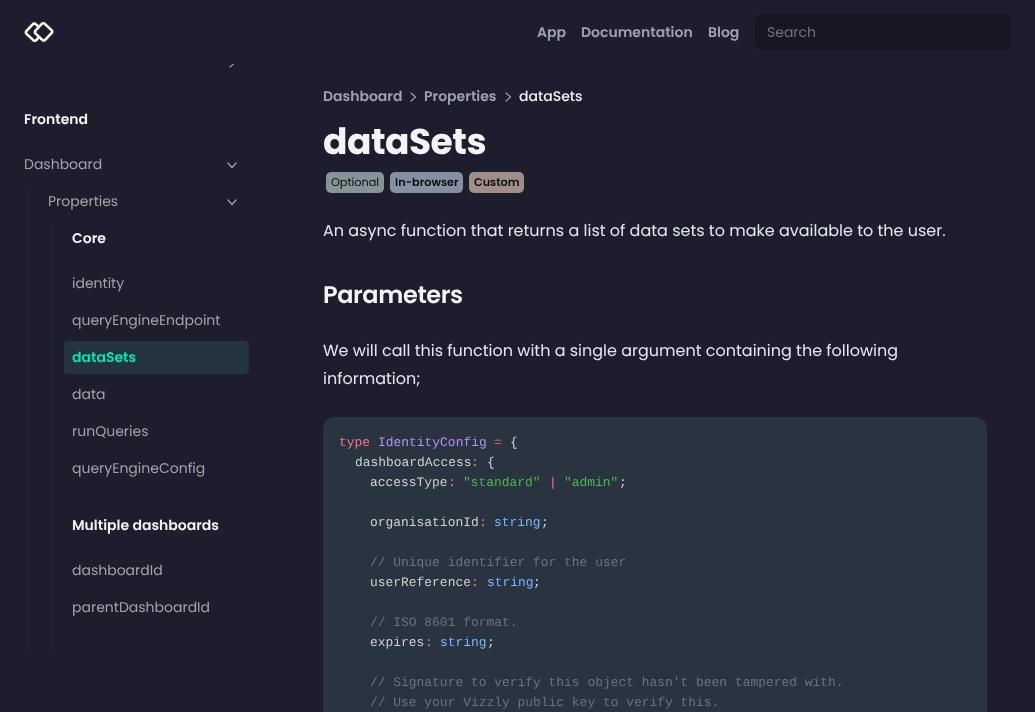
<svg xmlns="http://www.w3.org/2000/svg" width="1035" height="712">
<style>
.a{font:600 14px Poppins;fill:#9ca3af}
.b{font:14px Poppins;fill:#6b737c}
.c{font:600 14px Poppins;fill:#f1f5f9}
.d{font:14px Poppins;fill:#a3a3a3}
.e{font:600 14px Poppins;fill:#00e6b8}
.f{font:500 14px Poppins;fill:#f1f5f9}
.g{font:bold 36px Poppins;letter-spacing:-0.5px;fill:#f1f5f9}
.h{font:11.25px Poppins;fill:#0c0c12}
.i{font:600 11.25px Poppins;fill:#0c0c12}
.j{font:16px Poppins;fill:#e2e8f0}
.k{font:600 24px Poppins;letter-spacing:-0.4px;fill:#f1f5f9}
.l{font:12.95px Liberation Mono;fill:#f97583}
.m{font:12.95px Liberation Mono;fill:#b392f0}
.n{font:12.95px Liberation Mono;fill:#d1d1d1}
.o{font:12.95px Liberation Mono;fill:#4bb74a}
.p{font:12.95px Liberation Mono;fill:#79b8ff}
.q{font:12.95px Liberation Mono;fill:#6b737c}
</style>
<defs>
<clipPath id="clip1"><path d="M16 64h233v588H16z"/></clipPath>
</defs>
<rect width="100%" height="100%" fill="#1e1d2d"/>
<image href="1.png" x="24" y="22" width="30" height="21"/>
<rect fill="#171622" x="755" y="14" width="256" height="36" rx="8"/>
<g clip-path="url(#clip1)">
<path fill="none" stroke="#a3a3a3" stroke-width="1.2" stroke-linecap="round" stroke-linejoin="round" d="M230 59l4.5 4l-4.5 4"/>
</g>
<path fill="none" stroke="#a3a3a3" stroke-width="1.2" stroke-linecap="round" stroke-linejoin="round" d="M236 163l-4 4.5l-4-4.5"/>
<path fill="#262626" d="M28 189h1v463H28z"/>
<path fill="none" stroke="#a3a3a3" stroke-width="1.2" stroke-linecap="round" stroke-linejoin="round" d="M236 200l-4 4.5l-4-4.5"/>
<path fill="#262626" d="M52 226h1v426H52z"/>
<rect fill="#23343f" x="64" y="341" width="185" height="33" rx="4"/>
<path fill="none" stroke="#9ca3af" stroke-width="1.2" stroke-linecap="round" stroke-linejoin="round" d="M411 93l4.5 4l-4.5 4"/>
<path fill="none" stroke="#9ca3af" stroke-width="1.2" stroke-linecap="round" stroke-linejoin="round" d="M506 93l4.5 4l-4.5 4"/>
<rect fill="#859497" x="326" y="172" width="58" height="21" rx="5"/>
<rect fill="#8391a3" x="390" y="172" width="73" height="21" rx="5"/>
<rect fill="#a08e88" x="469" y="172" width="55" height="21" rx="5"/>
<rect fill="#293440" x="323" y="417" width="664" height="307" rx="12"/>
<text class="a" x="537" y="37">App</text>
<text class="a" x="581" y="37">Documentation</text>
<text class="a" x="708" y="37">Blog</text>
<text class="b" x="767" y="37">Search</text>
<text class="c" x="24" y="124">Frontend</text>
<text class="d" x="24" y="169">Dashboard</text>
<text class="d" x="48" y="206">Properties</text>
<text class="c" x="72" y="243">Core</text>
<text class="d" x="72" y="288">identity</text>
<text class="d" x="72" y="325">queryEngineEndpoint</text>
<text class="e" x="72" y="362">dataSets</text>
<text class="d" x="72" y="399">data</text>
<text class="d" x="72" y="436">runQueries</text>
<text class="d" x="72" y="473">queryEngineConfig</text>
<text class="c" x="72" y="530">Multiple dashboards</text>
<text class="d" x="72" y="575">dashboardId</text>
<text class="d" x="72" y="612">parentDashboardId</text>
<text class="a" x="323" y="101">Dashboard</text>
<text class="a" x="424" y="101">Properties</text>
<text class="f" x="519" y="101">dataSets</text>
<text class="g" x="323" y="154">dataSets</text>
<text class="h" x="331" y="186">Optional</text>
<text class="i" x="395" y="186">In-browser</text>
<text class="i" x="474" y="186">Custom</text>
<text class="j" x="323" y="236">An async function that returns a list of data sets to make available to the user.</text>
<text class="k" x="323" y="303">Parameters</text>
<text class="j" x="323" y="356">We will call this function with a single argument containing the following</text>
<text class="j" x="323" y="384">information;</text>
<text class="l" x="339" y="446">type</text>
<text class="m" x="378" y="446">IdentityConfig</text>
<text class="l" x="494" y="446">=</text>
<text class="n" x="510" y="446">{</text>
<text class="n" x="355" y="466">dashboardAccess</text>
<text class="l" x="471" y="466">:</text>
<text class="n" x="487" y="466">{</text>
<text class="n" x="370" y="486">accessType</text>
<text class="l" x="448" y="486">:</text>
<text class="o" x="463" y="486">"standard"</text>
<text class="l" x="549" y="486">|</text>
<text class="o" x="564" y="486">"admin"</text>
<text class="n" x="619" y="486">;</text>
<text class="n" x="370" y="526">organisationId</text>
<text class="l" x="479" y="526">:</text>
<text class="p" x="494" y="526">string</text>
<text class="n" x="541" y="526">;</text>
<text class="q" x="370" y="566">// Unique identifier for the user</text>
<text class="n" x="370" y="586">userReference</text>
<text class="l" x="471" y="586">:</text>
<text class="p" x="487" y="586">string</text>
<text class="n" x="533" y="586">;</text>
<text class="q" x="370" y="626">// ISO 8601 format.</text>
<text class="n" x="370" y="646">expires</text>
<text class="l" x="425" y="646">:</text>
<text class="p" x="440" y="646">string</text>
<text class="n" x="487" y="646">;</text>
<text class="q" x="370" y="686">// Signature to verify this object hasn't been tampered with.</text>
<text class="q" x="370" y="706">// Use your Vizzly public key to verify this.</text>
</svg>
